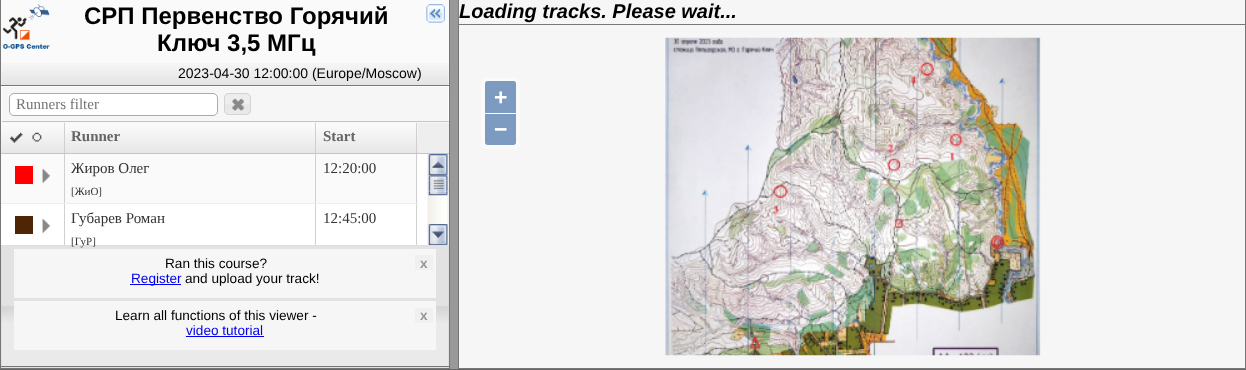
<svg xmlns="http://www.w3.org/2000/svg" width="1246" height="370">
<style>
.a{font:bold 24px Liberation Sans;fill:#000}
.b{font:14px Liberation Sans;fill:#000}
.c{font:15px Liberation Serif;fill:#757575}
.d{font:bold 15px Liberation Serif;fill:#666}
.e{font:15px Liberation Serif;fill:#333}
.f{font:11px Liberation Serif;fill:#333}
.g{font:13.6px Liberation Sans;fill:#000}
.h{font:bold 13.6px Liberation Sans;fill:#969696}
.i{font:13.6px Liberation Sans;fill:#00e}
.j{font:italic bold 20px Liberation Sans;fill:#000}
.k{font:bold 23px Liberation Sans;fill:#fff}
</style>
<defs>
<clipPath id="clip1"><path d="M6 86h438c3 0 5 2 5 5v154h-443c-3 0-5-2-5-5v-149c0-3 2-5 5-5z"/></clipPath>
<linearGradient id="g1" gradientUnits="userSpaceOnUse" x1="1.2" y1="120" x2="1.2" y2="154"><stop offset="0" stop-color="#fefefe"/><stop offset="1" stop-color="#e6e6e6"/></linearGradient>
</defs>
<rect width="100%" height="100%" fill="#666"/>
<path fill="#999" d="M450 0h8v369H450z"/>
<path fill="#fff" d="M1 86h448v159H1z"/>
<path fill="none" stroke="#777" d="M0.5 -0.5h449v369H0.5z"/>
<path fill="#fafafa" d="M1 0h448v85H1z"/>
<image href="1.png" x="1" y="63" width="448" height="22"/>
<path fill="#777" d="M1 85h448v1H1z"/>
<image href="2.png" x="2" y="4" width="48" height="45"/>
<image href="3.png" x="426" y="4" width="19" height="19"/>
<path fill="#f6f6f6" d="M6 86h438c3 0 5 2 5 5v32h-448v-32c0-3 2-5 5-5z"/>
<g clip-path="url(#clip1)">
<path fill="#fff" d="M1 86h448v1H1z"/>
<path fill="#fff" d="M448 86h1v37H448z"/>
</g>
<path fill="#c5c5c5" d="M1 121h448v1H1z"/>
<g clip-path="url(#clip1)">
<path fill="#fff" d="M1 86h1v37H1z"/>
</g>
<rect fill="#fff" stroke="#aaa" x="9.5" y="93.5" width="208" height="22" rx="4.5"/>
<image href="4.png" x="224" y="93" width="27" height="22"/>
<rect fill="none" stroke="#d3d3d3" x="224.5" y="93.5" width="26" height="21" rx="4.5"/>
<image href="5.png" x="232" y="98" width="12" height="13"/>
<path fill="#eee" d="M418 123h31v30H418z"/>
<path fill="#c5c5c5" d="M1 153h448v1H1z"/>
<path fill="url(#g1)" d="M1 123h417v30H1z"/>
<path fill="#cfcfcf" d="M64 123h1v30H64z"/>
<image href="6.png" x="9" y="132" width="14" height="11"/>
<image href="7.png" x="32" y="132" width="10" height="10"/>
<path fill="#cfcfcf" d="M315 123h1v30H315z"/>
<path fill="#cfcfcf" d="M416 123h1v30H416z"/>
<path fill="#fafafa" d="M1 154h63v49H1z"/>
<path fill="#d0d0d0" d="M64 154h1v91H64z"/>
<path fill="#ededed" d="M1 203h64v1H1z"/>
<path fill="#f00" d="M15 166h18v18H15z"/>
<image href="8.png" x="42" y="168" width="9" height="15"/>
<path fill="#fafafa" d="M65 154h250v49H65z"/>
<path fill="#d0d0d0" d="M315 154h1v91H315z"/>
<path fill="#ededed" d="M65 203h251v1H65z"/>
<path fill="#fafafa" d="M316 154h102v49H316z"/>
<path fill="#d0d0d0" d="M416 154h1v91H416z"/>
<path fill="#ededed" d="M316 203h102v1H316z"/>
<path fill="#4e2606" d="M15 216h18v18H15z"/>
<image href="9.png" x="42" y="218" width="9" height="15"/>
<path fill="#efefef" d="M448 154h1v91H448z"/>
<image href="10.png" x="427" y="154" width="21" height="91"/>
<image href="11.png" x="427" y="154" width="21" height="22"/>
<image href="12.png" x="427" y="175" width="21" height="4"/>
<path fill="#b6cefb" d="M448 179h1v1H448z"/>
<image href="13.png" x="427" y="179" width="22" height="2"/>
<image href="14.png" x="427" y="180" width="21" height="11"/>
<path fill="#b6cefb" d="M428 190h21v1H428z"/>
<image href="15.png" x="428" y="190" width="21" height="2"/>
<image href="16.png" x="427" y="191" width="21" height="5"/>
<image href="17.png" x="427" y="224" width="21" height="21"/>
<path fill="#d6d6d6" d="M1 245h448v123H1z"/>
<image href="18.png" x="1" y="245" width="448" height="123"/>
<path fill="#777" d="M1 366h448v1H1z"/>
<path fill="#f6f6f6" d="M14 249h422v49H14z"/>
<path fill="#f0f0f0" d="M415 255h18v15H415z"/>
<path fill="#00e" d="M130 284h51v1H130z"/>
<path fill="#f6f6f6" d="M14 301h422v49H14z"/>
<path fill="#f0f0f0" d="M415 308h18v15H415z"/>
<path fill="#00e" d="M186 336h78v1H186z"/>
<path fill="#f6f6f6" d="M459 25h786v343H459z"/>
<path fill="none" stroke="#777" d="M458.5 -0.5h787v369H458.5z"/>
<image href="19.png" x="458" y="0" width="1" height="24"/>
<path fill="#777" d="M459 24h786v1H459z"/>
<path fill="#f6f6f6" d="M459 0h786v24H459z"/>
<rect fill="#fafafa" x="481" y="78" width="39" height="71" rx="5"/>
<path fill="#7d9bc1" d="M487.5 81h26c1.5 0 2.5 1 2.5 2.5v29.5h-31v-29.5c0-1.5 1-2.5 2.5-2.5z"/>
<path fill="#7d9bc1" d="M485 114h31v28.5c0 1.5-1 2.5-2.5 2.5h-26c-1.5 0-2.5-1-2.5-2.5z"/>
<image href="20.png" x="665" y="37" width="376" height="319"/>
<text class="a" x="84" y="24">СРП Первенство Горячий</text>
<text class="a" x="157" y="51">Ключ 3,5 МГц</text>
<text class="b" x="178" y="78">2023-04-30 12:00:00 (Europe/Moscow)</text>
<text class="c" x="16" y="109">Runners filter</text>
<text class="d" x="71" y="141">Runner</text>
<text class="d" x="323" y="141">Start</text>
<text class="e" x="71" y="173">Жиров Олег</text>
<text class="f" x="71" y="195">[ЖиО]</text>
<text class="e" x="323" y="173">12:20:00</text>
<text class="e" x="71" y="223">Губарев Роман</text>
<text class="f" x="71" y="245">[ГуР]</text>
<text class="e" x="323" y="223">12:45:00</text>
<text class="g" x="165" y="268">Ran this course?</text>
<text class="h" x="420" y="268">x</text>
<text class="i" x="131" y="283">Register</text>
<text class="g" x="185" y="283">and upload your track!</text>
<text class="g" x="115" y="320">Learn all functions of this viewer -</text>
<text class="h" x="420" y="320">x</text>
<text class="i" x="186" y="335">video tutorial</text>
<text class="j" x="459" y="18">Loading tracks. Please wait...</text>
<text class="k" x="494" y="105">+</text>
<text class="k" x="494" y="137">−</text>
</svg>
